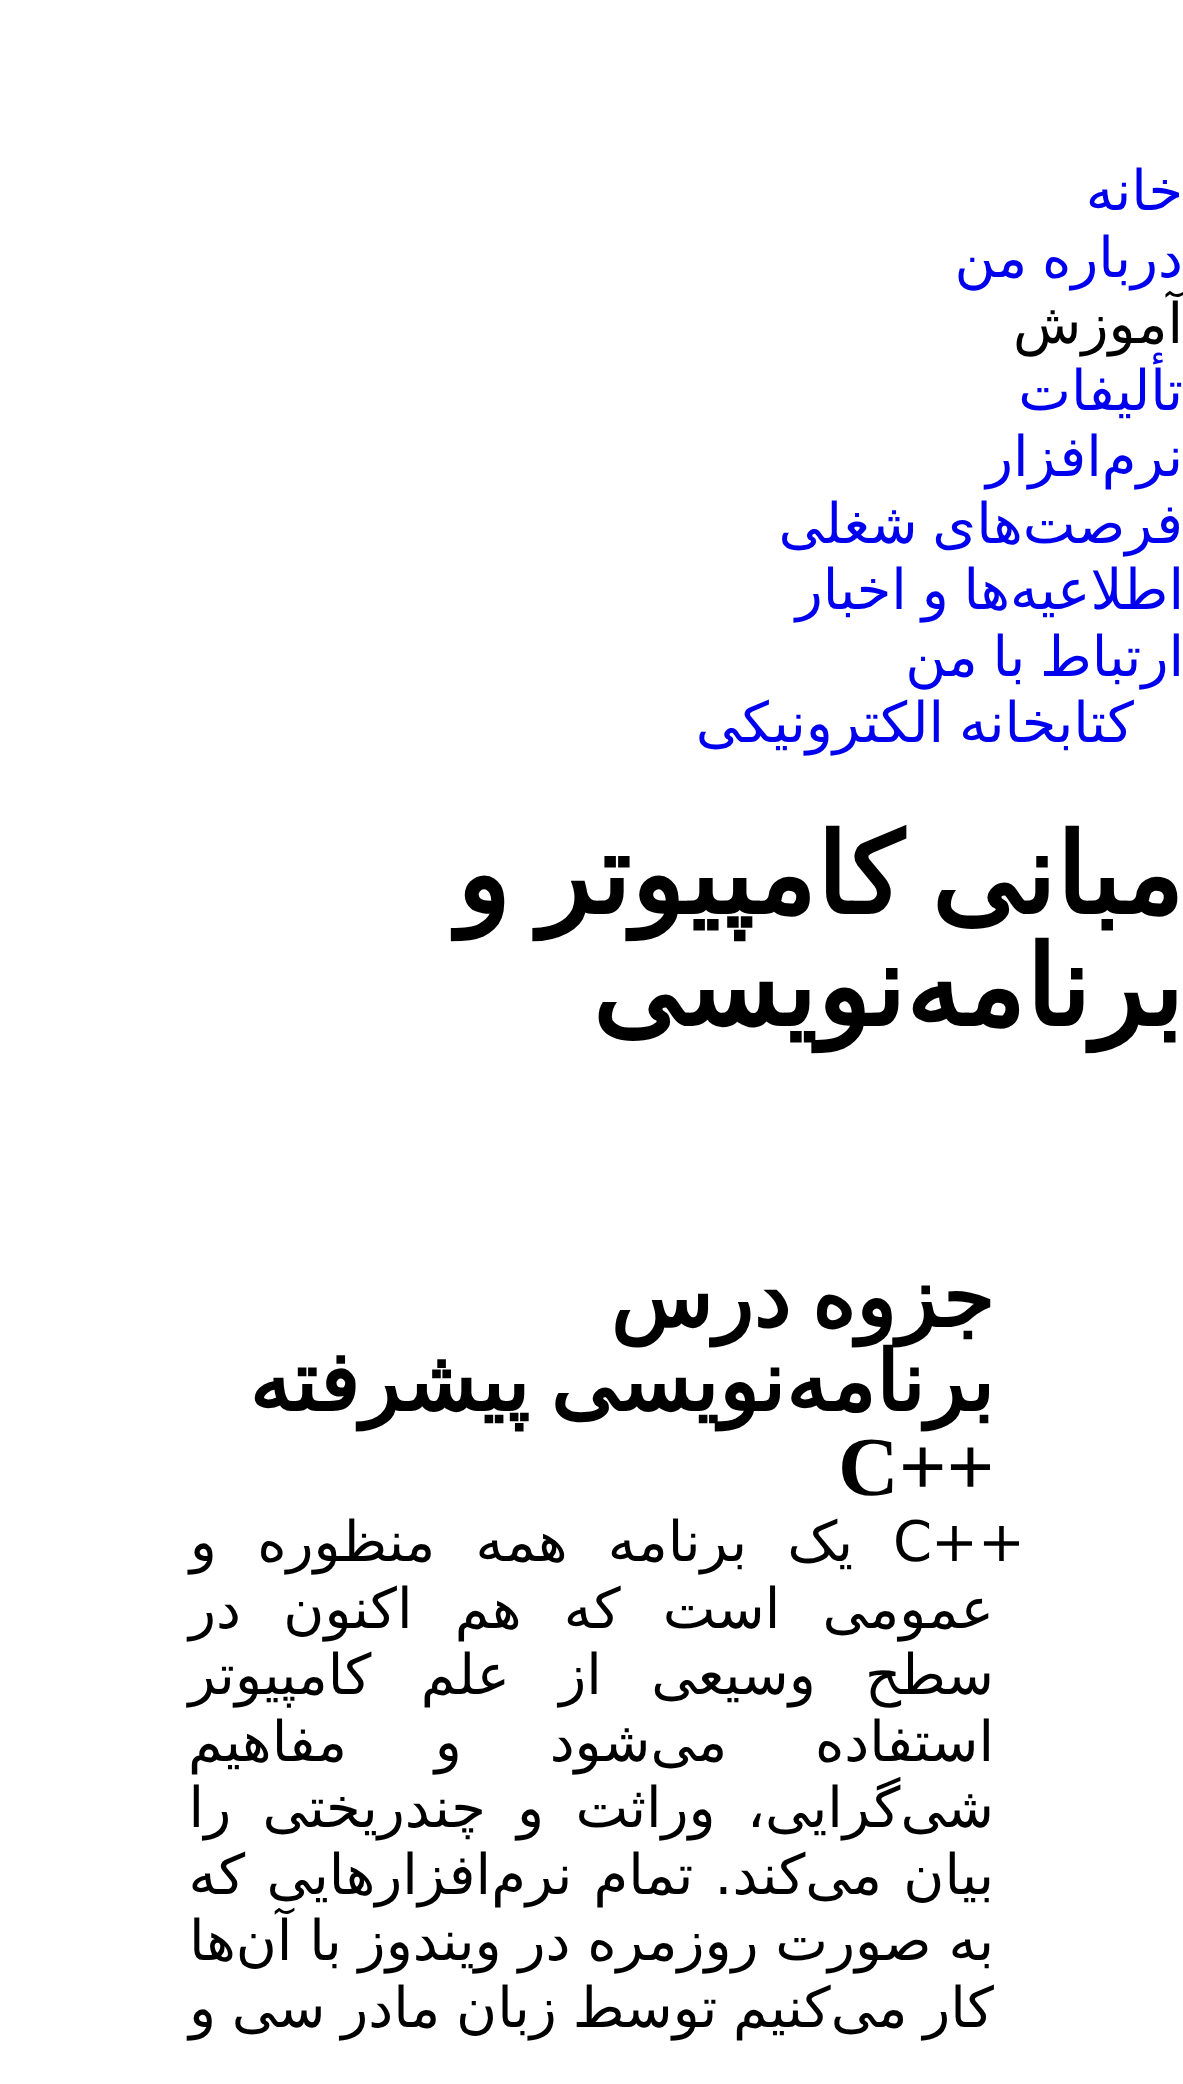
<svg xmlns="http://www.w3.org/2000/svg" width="1183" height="2084">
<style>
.a{font:56px DejaVu Sans;direction:rtl;fill:#00e}
.b{font:56px DejaVu Sans;direction:rtl;fill:#000}
.c{font:bold 112px DejaVu Sans;direction:rtl;fill:#000}
.d{font:bold 84px DejaVu Sans;direction:rtl;fill:#000}
.e{font:bold 84px Liberation Serif;fill:#000}
.f{font:56px DejaVu Sans;fill:#000}
</style>
<rect width="100%" height="100%" fill="#fff"/>
<text class="a" x="1183" y="210">خانه</text>
<text class="a" x="1183" y="277" word-spacing="-3">درباره من</text>
<text class="b" x="1183" y="343">آموزش</text>
<text class="a" x="1183" y="410">تألیفات</text>
<text class="a" x="1183" y="476">نرم‌افزار</text>
<text class="a" x="1183" y="543" word-spacing="-3">فرصت‌های شغلی</text>
<text class="a" x="1184" y="609" word-spacing="-3">اطلاعیه‌ها و اخبار</text>
<text class="a" x="1184" y="676" word-spacing="-3">ارتباط با من</text>
<text class="a" x="1134" y="742" word-spacing="-3">کتابخانه الکترونیکی</text>
<text class="c" x="1183" y="914" word-spacing="-8">مبانی کامپیوتر و</text>
<text class="c" x="1183" y="1026">برنامه</text>
<text class="c" x="905" y="1026">نویسی</text>
<text class="d" x="994" y="1327" word-spacing="-6">جزوه درس</text>
<text class="d" x="994" y="1411">برنامه</text>
<text class="d" x="785" y="1411" word-spacing="-6">نویسی پیشرفته</text>
<text class="e" x="838" y="1495">C++</text>
<text class="f" x="931" y="1561">++</text>
<text class="f" x="893" y="1561">C</text>
<text class="b" x="853" y="1561" word-spacing="22.5">یک برنامه همه منظوره و</text>
<text class="b" x="994" y="1628" word-spacing="24.5">عمومی است که هم اکنون در</text>
<text class="b" x="994" y="1694" word-spacing="31.5">سطح وسیعی از علم کامپیوتر</text>
<text class="b" x="994" y="1761" word-spacing="70">استفاده می‌شود و مفاهیم</text>
<text class="b" x="994" y="1827" word-spacing="13.5">شی‌گرایی، وراثت و چندریختی را</text>
<text class="b" x="994" y="1894" word-spacing="3.5">بیان می‌کند. تمام نرم‌افزارهایی که</text>
<text class="b" x="994" y="1960" word-spacing="-1">به صورت روزمره در ویندوز با آن‌ها</text>
<text class="b" x="994" y="2027" word-spacing="-2">کار می‌کنیم توسط زبان مادر سی و</text>
</svg>
